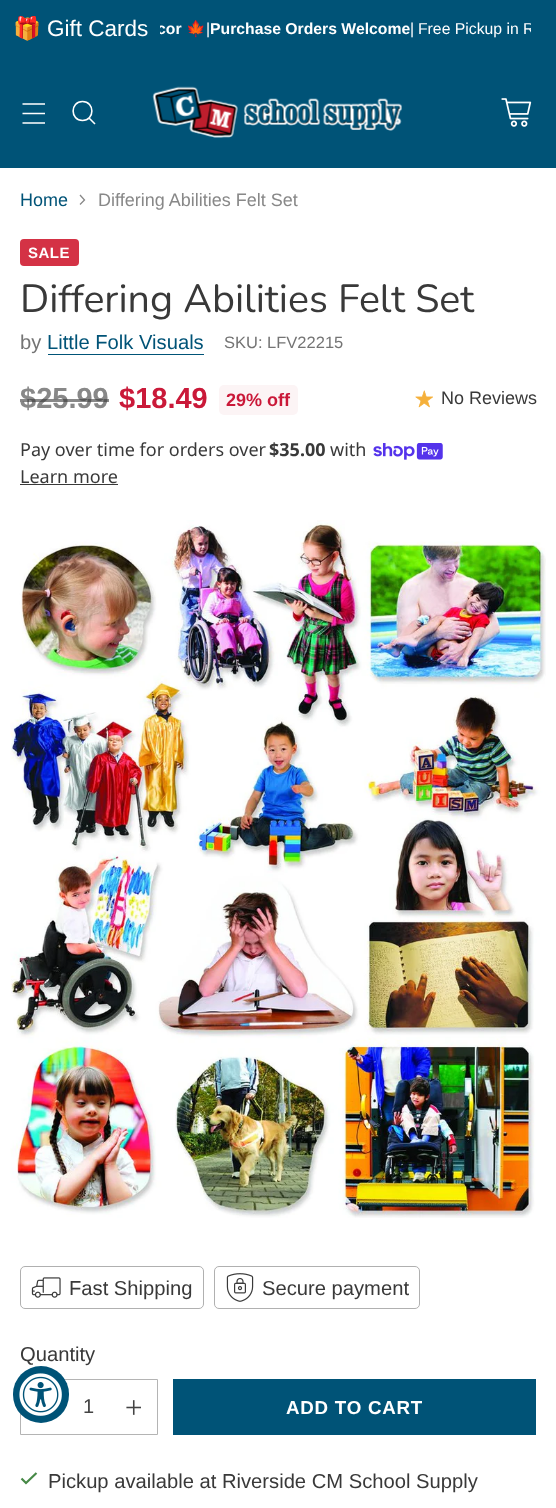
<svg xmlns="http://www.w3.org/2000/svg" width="556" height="1508">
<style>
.a{font:22.5px Noto Color Emoji;fill:#fff}
.b{font:22.5px Arimo;fill:#fff}
.c{font:bold 15.75px Arimo;fill:#fff}
.d{font:bold 15.75px Noto Color Emoji;fill:#fff}
.e{font:15.75px Arimo;fill:#fff}
.f{font:18px Arimo;fill:#005377}
.g{font:18px Arimo;fill:#888}
.h{font:bold 15px Arimo;letter-spacing:0.5px;fill:#fff}
.i{font:39.4px Nunito;fill:#393939}
.j{font:20.2px Arimo;fill:#747474}
.k{font:20.2px Arimo;fill:#005377}
.l{font:16.5px Arimo;fill:#747474}
.m{font:bold 29px Arimo;fill:#888}
.n{font:bold 29px Arimo;fill:#ca1939}
.o{font:bold 18px Arimo;fill:#ca1939}
.p{font:18px Arimo;fill:#393939}
.q{font:18px Noto Sans;fill:#393939}
.r{font:bold 18px Noto Sans;fill:#393939}
.s{font:20.2px Arimo;fill:#393939}
.t{font:20px Arimo;fill:#444}
.u{font:bold 18.75px Arimo;letter-spacing:0.75px;fill:#fff}
</style>
<defs>
<clipPath id="clip1"><path d="M160 18h371v23H160z"/></clipPath>
</defs>
<rect width="100%" height="100%" fill="#fff"/>
<path fill="#005377" d="M0 0h556v168H0z"/>
<path fill="none" stroke="#fff" stroke-width="1.6" d="M22.5 113.5h22.5m-22.5-9.5h22.5m-22.5 19h22.5"/>
<path fill="none" stroke="#fff" stroke-width="1.6" stroke-linecap="round" d="M82.5 120.5c12.5 0 12.5-19 0-19c-12.5 0-12.5 19 0 19z"/>
<path fill="none" stroke="#fff" stroke-width="1.6" d="M89 118l6 6"/>
<image href="1.png" x="152" y="86" width="250" height="52"/>
<image href="2.png" x="501" y="98" width="31" height="29"/>
<path fill="none" stroke="#888" stroke-width="1.3" d="M80 204.5l4.5-4.5l-4.5-5"/>
<rect fill="#d43245" x="20" y="239" width="59" height="27" rx="4"/>
<path fill="#005377" d="M48 354h156v1H48z"/>
<rect fill="#fcf4f5" x="219" y="385" width="79" height="30" rx="5"/>
<image href="3.png" x="415" y="390" width="18" height="18"/>
<image href="4.png" x="373" y="443" width="70" height="17"/>
<path fill="#393939" d="M20 484h98v1H20z"/>
<image href="5.png" x="10" y="520" width="536" height="698"/>
<rect fill="none" stroke="#b0b0b0" x="20.5" y="1266.5" width="183" height="42" rx="4.5"/>
<image href="6.png" x="31" y="1277" width="30" height="21"/>
<rect fill="none" stroke="#b0b0b0" x="214.5" y="1266.5" width="205" height="42" rx="4.5"/>
<image href="7.png" x="226" y="1273" width="28" height="29"/>
<path fill="none" stroke="#b4b4b4" d="M20.5 1379.5h137v55H20.5z"/>
<image href="8.png" x="126" y="1400" width="15" height="15"/>
<path fill="#005377" d="M173 1379h363v56H173z"/>
<path fill="none" stroke="#478947" stroke-width="2.2" d="M21.5 1478.5l4.5 4.5l10.5-10"/>
<rect fill="#005377" x="13" y="1366" width="56" height="57" rx="28"/>
<image href="9.png" x="19" y="1373" width="43" height="43"/>
<text class="a" x="13" y="36">🎁</text>
<text class="b" x="47" y="36">Gift Cards</text>
<g clip-path="url(#clip1)">
<text class="c" x="157" y="34">cor</text>
</g>
<text class="d" x="186" y="34">🍁</text>
<text class="e" x="206" y="34">|</text>
<text class="c" x="210" y="34">Purchase Orders Welcome</text>
<text class="e" x="410" y="34">|</text>
<g clip-path="url(#clip1)">
<text class="e" x="418" y="34">Free Pickup in R</text>
</g>
<text class="f" x="20" y="206">Home</text>
<text class="g" x="98" y="206">Differing Abilities Felt Set</text>
<text class="h" x="28" y="258">SALE</text>
<text class="i" x="20" y="312">Differing Abilities Felt Set</text>
<text class="j" x="20" y="349">by</text>
<text class="k" x="47" y="349">Little Folk Visuals</text>
<text class="l" x="224" y="348">SKU: LFV22215</text>
<text class="m" x="20" y="408">$25.99</text>
<path fill="#39393999" d="M20 399h89v3H20z"/>
<text class="n" x="119" y="408">$18.49</text>
<text class="o" x="226" y="406">29% off</text>
<text class="p" x="441" y="404">No Reviews</text>
<text class="q" x="20" y="456">Pay over time for orders over</text>
<text class="r" x="269" y="456">$35.00</text>
<text class="q" x="330" y="456">with</text>
<text class="q" x="20" y="483">Learn more</text>
<text class="s" x="69" y="1295">Fast Shipping</text>
<text class="s" x="262" y="1295">Secure payment</text>
<text class="s" x="20" y="1361">Quantity</text>
<text class="t" x="83" y="1413">1</text>
<text class="u" x="286" y="1414">ADD TO CART</text>
<text class="s" x="48" y="1488">Pickup available at Riverside CM School Supply</text>
</svg>
